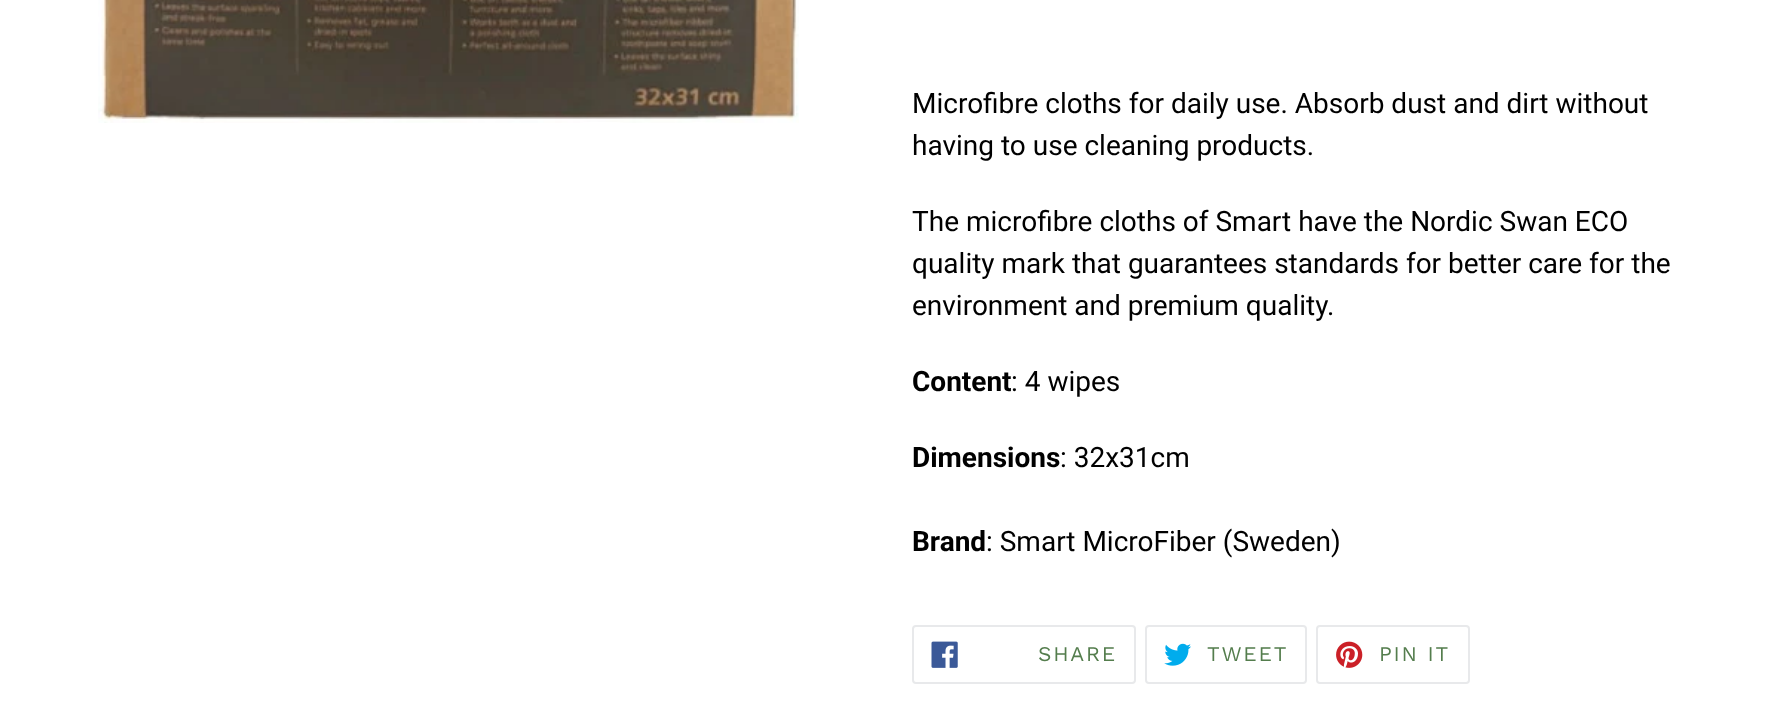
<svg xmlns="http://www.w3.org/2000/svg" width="1771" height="722">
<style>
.a{font:28px Roboto;fill:#000}
.b{font:bold 28px Roboto;fill:#000}
.c{font:21px Work Sans;letter-spacing:1.75px;fill:#547d4d}
</style>
<rect width="100%" height="100%" fill="#fff"/>
<image href="1.png" x="98" y="0" width="701" height="123"/>
<rect fill="none" stroke="#e8e9eb" stroke-width="2" x="913" y="626" width="222" height="57" rx="3"/>
<image href="2.png" x="931" y="641" width="27" height="27"/>
<rect fill="none" stroke="#e8e9eb" stroke-width="2" x="1146" y="626" width="160" height="57" rx="3"/>
<image href="3.png" x="1164" y="643" width="27" height="23"/>
<rect fill="none" stroke="#e8e9eb" stroke-width="2" x="1317" y="626" width="152" height="57" rx="3"/>
<image href="4.png" x="1336" y="641" width="27" height="27"/>
<text class="a" x="912" y="113">Microfibre cloths for daily use. Absorb dust and dirt without</text>
<text class="a" x="912" y="155">having to use cleaning products.</text>
<text class="a" x="912" y="231">The microfibre cloths of Smart have the Nordic Swan ECO</text>
<text class="a" x="912" y="273">quality mark that guarantees standards for better care for the</text>
<text class="a" x="912" y="315">environment and premium quality.</text>
<text class="b" x="912" y="391">Content</text>
<text class="a" x="1011" y="391">: 4 wipes</text>
<text class="b" x="912" y="467">Dimensions</text>
<text class="a" x="1060" y="467">: 32x31cm</text>
<text class="b" x="912" y="551">Brand</text>
<text class="a" x="986" y="551">: Smart MicroFiber (Sweden)</text>
<text class="c" x="1038" y="661">SHARE</text>
<text class="c" x="1207" y="661">TWEET</text>
<text class="c" x="1379" y="661">PIN IT</text>
</svg>
